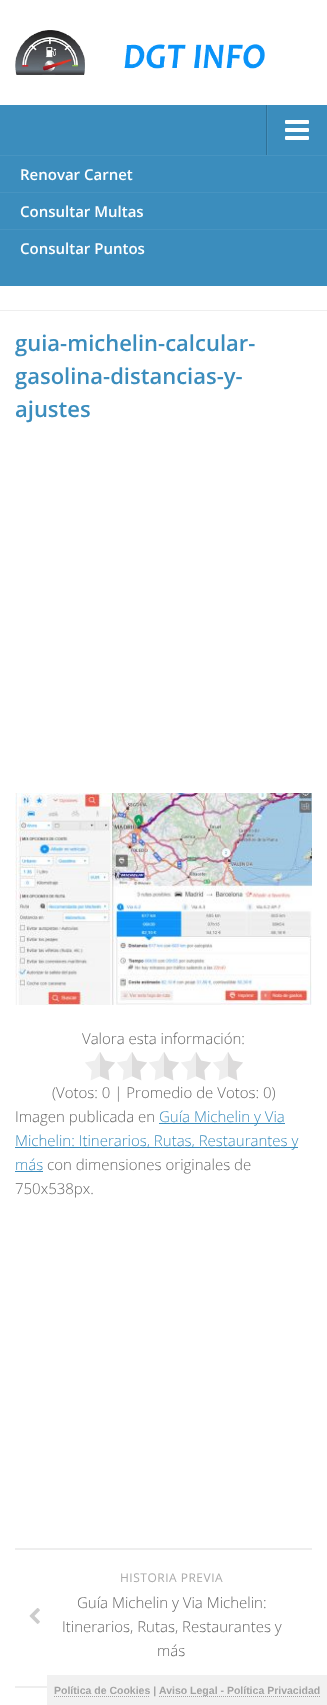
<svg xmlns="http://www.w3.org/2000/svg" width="327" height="1705">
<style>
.a{font:600 15px Open Sans;fill:#fff}
.b{font:600 22px Open Sans;fill:#3b8dbd}
.c{font:300 15px Open Sans;fill:#666}
.d{font:300 15px Open Sans;fill:#3b8dbd}
.e{font:12px Open Sans;letter-spacing:0.5px;fill:#aaa}
.f{font:bold 10.5px Liberation Sans;fill:#a3a3a3}
</style>
<rect width="100%" height="100%" fill="#fff"/>
<image href="1.png" x="15" y="30" width="250" height="45"/>
<path fill="#3b8dbd" d="M0 105h327v181H0z"/>
<path fill="#2f7197" d="M266 105h1v50H266z"/>
<path fill="#4593c0" d="M267 105h1v50H267z"/>
<image href="2.png" x="285" y="120" width="24" height="20"/>
<path fill="#4794c1" d="M0 155h327v1H0z"/>
<path fill="#4794c1" d="M0 192h327v1H0z"/>
<path fill="#4794c1" d="M0 229h327v1H0z"/>
<path fill="#eee" d="M0 310h327v1H0z"/>
<image href="3.png" x="15" y="793" width="297" height="212"/>
<image href="4.png" x="85" y="1052" width="158" height="29"/>
<path fill="#3b8dbd" d="M159 1123h126v1H159z"/>
<path fill="#3b8dbd" d="M15 1147h283v1H15z"/>
<path fill="#3b8dbd" d="M15 1171h28v1H15z"/>
<path fill="#eee" d="M15 1548h297v2H15z"/>
<path fill="#eee" d="M15 1686h32v2H15z"/>
<image href="5.png" x="29" y="1608" width="11" height="16"/>
<path fill="#f1f1f1" d="M47 1675h280v30H47z"/>
<path fill="none" stroke="#a3a3a3" stroke-dasharray="1 1" d="M54 1696.5h96"/>
<path fill="none" stroke="#a3a3a3" stroke-dasharray="1 1" d="M159 1696.5h161"/>
<text class="a" x="20" y="180">Renovar Carnet</text>
<text class="a" x="20" y="217">Consultar Multas</text>
<text class="a" x="20" y="254">Consultar Puntos</text>
<text class="b" x="15" y="351">guia-michelin-calcular-</text>
<text class="b" x="15" y="384">gasolina-distancias-y-</text>
<text class="b" x="15" y="417">ajustes</text>
<text class="c" x="82" y="1044">Valora esta información:</text>
<text class="c" x="52" y="1098">(Votos: 0 | Promedio de Votos: 0)</text>
<text class="c" x="15" y="1122">Imagen publicada en</text>
<text class="d" x="159" y="1122">Guía Michelin y Via</text>
<text class="d" x="15" y="1146">Michelin: Itinerarios, Rutas, Restaurantes y</text>
<text class="d" x="15" y="1170">más</text>
<text class="c" x="47" y="1170">con dimensiones originales de</text>
<text class="c" x="15" y="1194">750x538px.</text>
<text class="e" x="120" y="1582">HISTORIA PREVIA</text>
<text class="c" x="77" y="1608">Guía Michelin y Via Michelin:</text>
<text class="c" x="62" y="1632">Itinerarios, Rutas, Restaurantes y</text>
<text class="c" x="157" y="1656">más</text>
<text class="f" x="54" y="1694">Política de Cookies |</text>
<text class="f" x="159" y="1694">Aviso Legal - Política Privacidad</text>
</svg>
